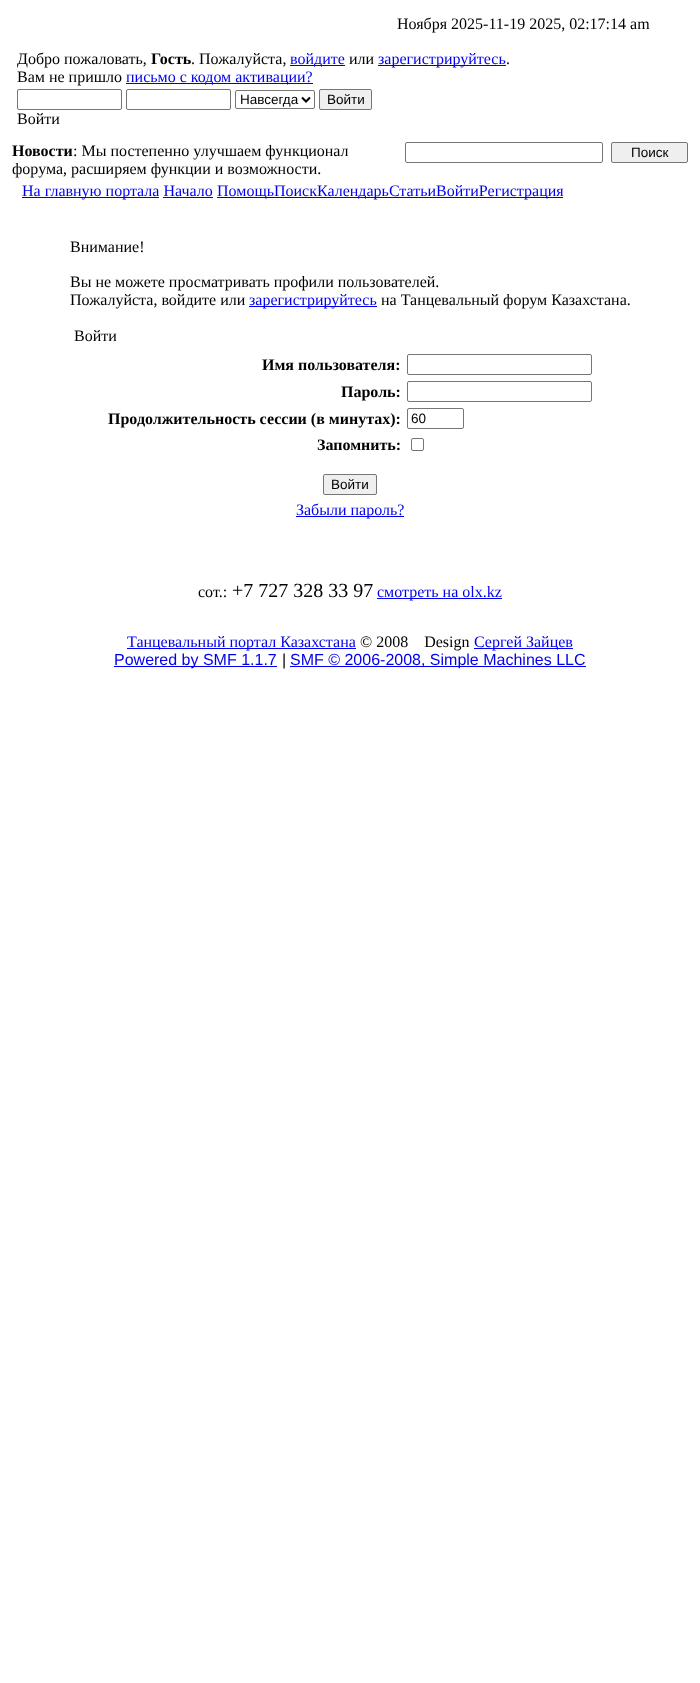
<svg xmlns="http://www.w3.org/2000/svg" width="700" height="1683">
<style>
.a{font:16px Liberation Serif;fill:#000}
.b{font:bold 16px Liberation Serif;fill:#000}
.c{font:16px Liberation Serif;fill:#00e}
.d{font:13.5px Liberation Sans;fill:#000}
.e{font:20px Liberation Serif;fill:#000}
.f{font:16px Liberation Sans;fill:#00e}
.g{font:16px Liberation Sans;fill:#000}
</style>
<rect width="100%" height="100%" fill="#fff"/>
<path fill="#00e" d="M290 65h55v1H290z"/>
<path fill="#00e" d="M378 65h128v1H378z"/>
<path fill="#00e" d="M126 83h187v1H126z"/>
<rect fill="none" stroke="#767676" x="17.5" y="89.5" width="104" height="20" rx="1.5"/>
<rect fill="none" stroke="#767676" x="126.5" y="89.5" width="104" height="20" rx="1.5"/>
<rect fill="none" stroke="#767676" x="235.5" y="90.5" width="79" height="18" rx="1.5"/>
<path fill="none" stroke="#000" stroke-width="2" d="M302 97.5l4 4l4-4"/>
<rect fill="#efefef" stroke="#767676" x="319.5" y="89.5" width="52" height="20" rx="1.5"/>
<rect fill="none" stroke="#767676" x="405.5" y="142.5" width="197" height="20" rx="1.5"/>
<rect fill="#efefef" stroke="#767676" x="611.5" y="142.5" width="76" height="20" rx="1.5"/>
<path fill="#00e" d="M22 197h137v1H22z"/>
<path fill="#00e" d="M217 197h346v1H217z"/>
<path fill="#00e" d="M163 197h50v1H163z"/>
<path fill="#00e" d="M249 306h128v1H249z"/>
<rect fill="none" stroke="#767676" x="407.5" y="354.5" width="184" height="20" rx="1.5"/>
<rect fill="none" stroke="#767676" x="407.5" y="381.5" width="184" height="20" rx="1.5"/>
<rect fill="none" stroke="#767676" x="407.5" y="408.5" width="56" height="20" rx="1.5"/>
<rect fill="none" stroke="#767676" x="411.5" y="438.5" width="12" height="12" rx="1.5"/>
<rect fill="#efefef" stroke="#767676" x="323.5" y="474.5" width="53" height="20" rx="1.5"/>
<path fill="#00e" d="M296 516h108v1H296z"/>
<path fill="#00e" d="M377 598h125v1H377z"/>
<path fill="#00e" d="M127 648h229v1H127z"/>
<path fill="#00e" d="M474 648h99v1H474z"/>
<path fill="#00e" d="M114 666h163v1H114z"/>
<path fill="#00e" d="M290 666h296v1H290z"/>
<text class="a" x="397" y="29">Ноября 2025-11-19 2025, 02:17:14 am</text>
<text class="a" x="17" y="64">Добро пожаловать,</text>
<text class="b" x="151" y="64">Гость</text>
<text class="a" x="191" y="64">. Пожалуйста,</text>
<text class="c" x="290" y="64">войдите</text>
<text class="a" x="349" y="64">или</text>
<text class="c" x="378" y="64">зарегистрируйтесь</text>
<text class="a" x="506" y="64">.</text>
<text class="a" x="17" y="82">Вам не пришло</text>
<text class="c" x="126" y="82">письмо с кодом активации?</text>
<text class="d" x="240" y="104">Навсегда</text>
<text class="d" x="327" y="104">Войти</text>
<text class="a" x="17" y="124">Войти</text>
<text class="b" x="12" y="156">Новости</text>
<text class="a" x="73" y="156">: Мы постепенно улучшаем функционал</text>
<text class="a" x="12" y="174">форума, расширяем функции и возможности.</text>
<text class="d" x="631" y="157">Поиск</text>
<text class="c" x="22" y="196">На главную портала Начало</text>
<text class="c" x="217" y="196">ПомощьПоискКалендарьСтатьиВойтиРегистрация</text>
<text class="a" x="70" y="252">Внимание!</text>
<text class="a" x="70" y="287">Вы не можете просматривать профили пользователей.</text>
<text class="a" x="70" y="305">Пожалуйста, войдите или</text>
<text class="c" x="249" y="305">зарегистрируйтесь</text>
<text class="a" x="381" y="305">на Танцевальный форум Казахстана.</text>
<text class="a" x="74" y="341">Войти</text>
<text class="b" x="262" y="370">Имя пользователя:</text>
<text class="b" x="341" y="397">Пароль:</text>
<text class="b" x="108" y="424">Продолжительность сессии (в минутах):</text>
<text class="d" x="411" y="423">60</text>
<text class="b" x="317" y="450">Запомнить:</text>
<text class="d" x="331" y="489">Войти</text>
<text class="c" x="296" y="515">Забыли пароль?</text>
<text class="a" x="198" y="597">сот.:</text>
<text class="e" x="232" y="597">+7 727 328 33 97</text>
<text class="c" x="377" y="597">смотреть на olx.kz</text>
<text class="c" x="127" y="647">Танцевальный портал Казахстана</text>
<text class="a" xml:space="preserve" x="360" y="647">© 2008    Design</text>
<text class="c" x="474" y="647">Сергей Зайцев</text>
<text class="f" x="114" y="665">Powered by SMF 1.1.7</text>
<text class="g" x="282" y="665">|</text>
<text class="f" x="290" y="665">SMF © 2006-2008, Simple Machines LLC</text>
</svg>
